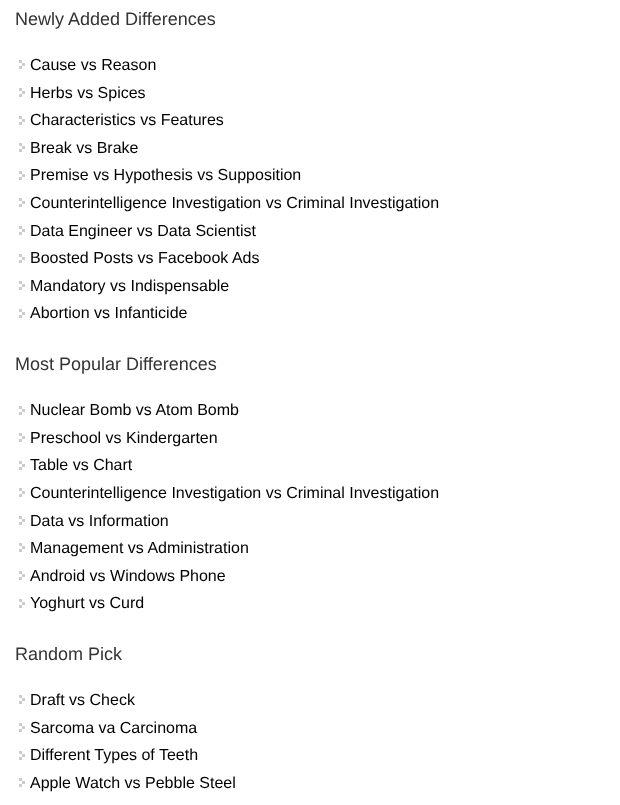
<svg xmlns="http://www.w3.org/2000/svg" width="620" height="805">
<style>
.a{font:18px Liberation Sans;fill:#333}
.b{font:16px Liberation Sans;fill:#000}
</style>
<rect width="100%" height="100%" fill="#fff"/>
<image href="1.png" x="19" y="60" width="6" height="9"/>
<image href="1.png" x="19" y="88" width="6" height="9"/>
<image href="1.png" x="19" y="116" width="6" height="9"/>
<image href="1.png" x="19" y="143" width="6" height="9"/>
<image href="1.png" x="19" y="171" width="6" height="9"/>
<image href="1.png" x="19" y="198" width="6" height="9"/>
<image href="1.png" x="19" y="226" width="6" height="9"/>
<image href="1.png" x="19" y="254" width="6" height="9"/>
<image href="1.png" x="19" y="281" width="6" height="9"/>
<image href="1.png" x="19" y="309" width="6" height="9"/>
<image href="1.png" x="19" y="406" width="6" height="9"/>
<image href="1.png" x="19" y="433" width="6" height="9"/>
<image href="1.png" x="19" y="461" width="6" height="9"/>
<image href="1.png" x="19" y="488" width="6" height="9"/>
<image href="1.png" x="19" y="516" width="6" height="9"/>
<image href="1.png" x="19" y="543" width="6" height="9"/>
<image href="1.png" x="19" y="571" width="6" height="9"/>
<image href="1.png" x="19" y="599" width="6" height="9"/>
<image href="1.png" x="19" y="695" width="6" height="9"/>
<image href="1.png" x="19" y="723" width="6" height="9"/>
<image href="1.png" x="19" y="751" width="6" height="9"/>
<image href="1.png" x="19" y="778" width="6" height="9"/>
<text class="a" x="15" y="25">Newly Added Differences</text>
<text class="b" x="30" y="70">Cause vs Reason</text>
<text class="b" x="30" y="98">Herbs vs Spices</text>
<text class="b" x="30" y="125">Characteristics vs Features</text>
<text class="b" x="30" y="153">Break vs Brake</text>
<text class="b" x="30" y="180">Premise vs Hypothesis vs Supposition</text>
<text class="b" x="30" y="208">Counterintelligence Investigation vs Criminal Investigation</text>
<text class="b" x="30" y="236">Data Engineer vs Data Scientist</text>
<text class="b" x="30" y="263">Boosted Posts vs Facebook Ads</text>
<text class="b" x="30" y="291">Mandatory vs Indispensable</text>
<text class="b" x="30" y="318">Abortion vs Infanticide</text>
<text class="a" x="15" y="370">Most Popular Differences</text>
<text class="b" x="30" y="415">Nuclear Bomb vs Atom Bomb</text>
<text class="b" x="30" y="443">Preschool vs Kindergarten</text>
<text class="b" x="30" y="470">Table vs Chart</text>
<text class="b" x="30" y="498">Counterintelligence Investigation vs Criminal Investigation</text>
<text class="b" x="30" y="526">Data vs Information</text>
<text class="b" x="30" y="553">Management vs Administration</text>
<text class="b" x="30" y="581">Android vs Windows Phone</text>
<text class="b" x="30" y="608">Yoghurt vs Curd</text>
<text class="a" x="15" y="660">Random Pick</text>
<text class="b" x="30" y="705">Draft vs Check</text>
<text class="b" x="30" y="733">Sarcoma va Carcinoma</text>
<text class="b" x="30" y="760">Different Types of Teeth</text>
<text class="b" x="30" y="788">Apple Watch vs Pebble Steel</text>
</svg>
